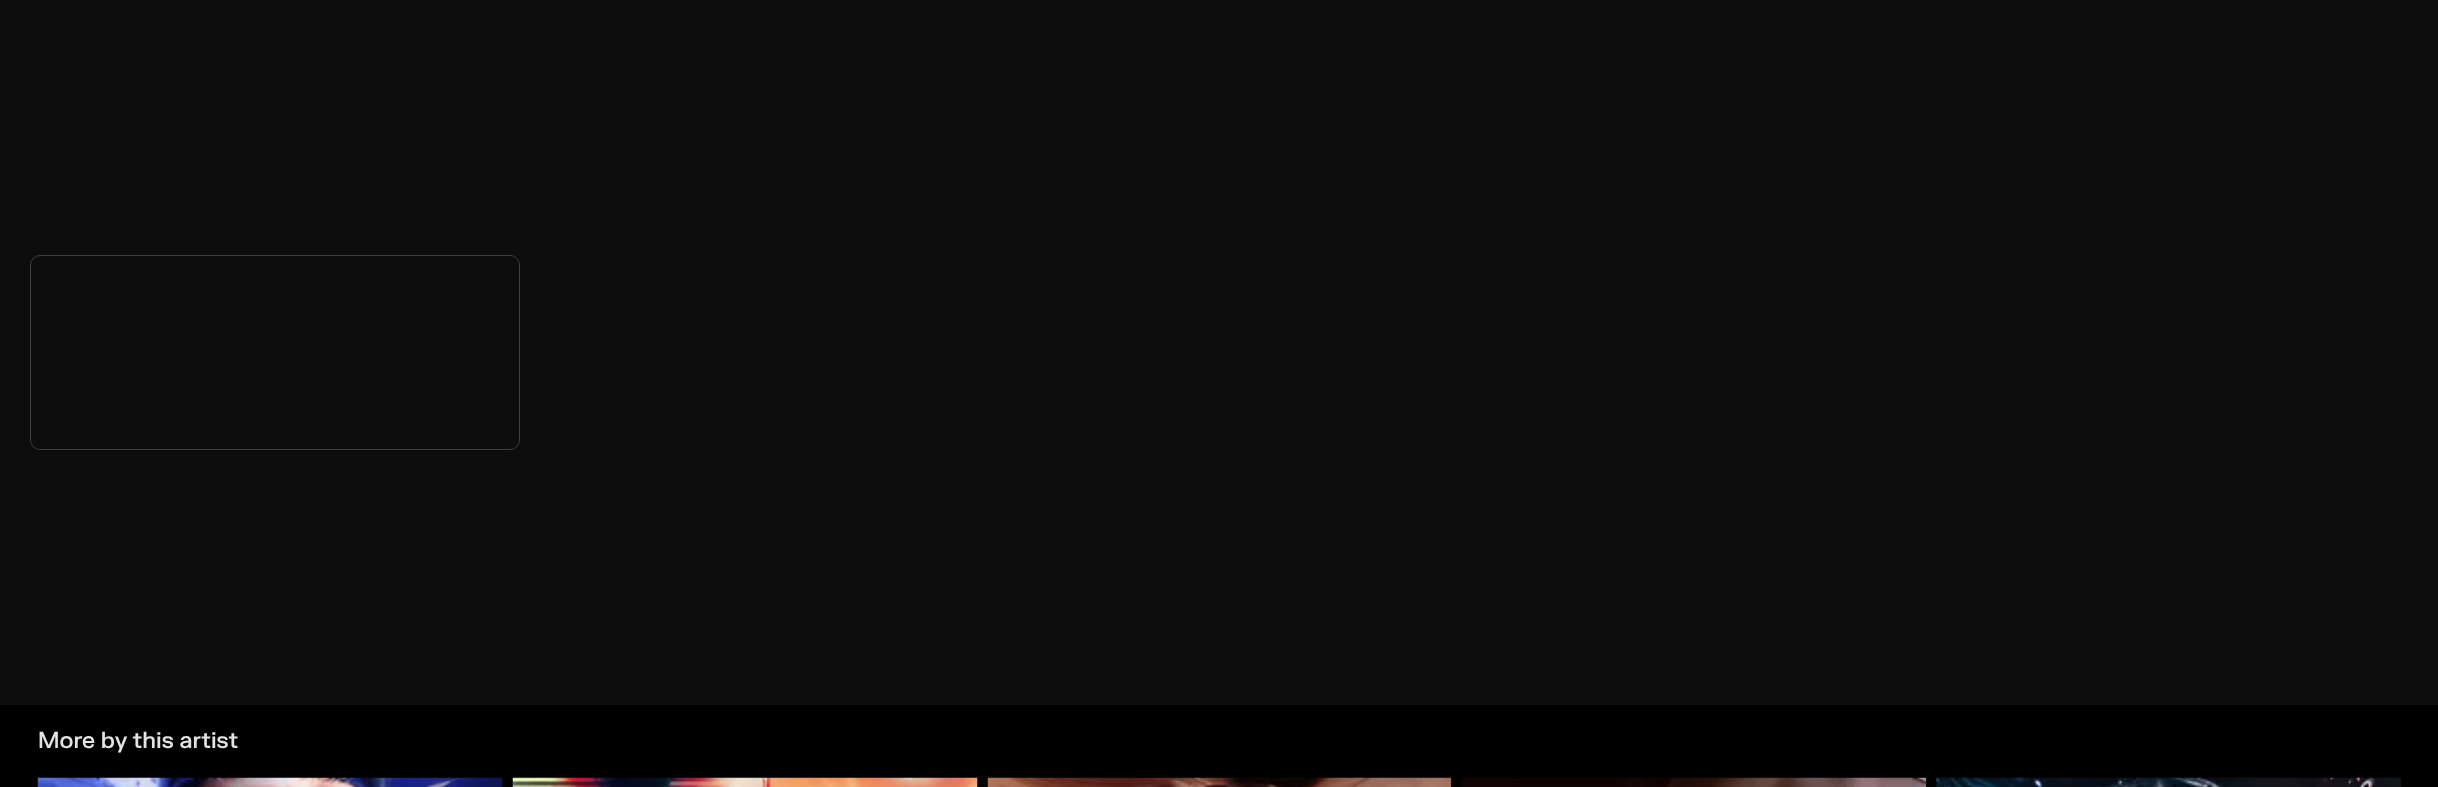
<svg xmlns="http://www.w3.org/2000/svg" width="2438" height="787">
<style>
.a{font:500 22.5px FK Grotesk;fill:#e3e3e3}
</style>
<defs>
<clipPath id="clip1"><rect x="31" y="256" width="488" height="193" rx="9"/></clipPath>
</defs>
<rect width="100%" height="100%" fill="#000"/>
<path fill="#0d0d0d" d="M0 0h2438v705H0z"/>
<rect fill="none" stroke="#404040" x="30.5" y="255.5" width="489" height="194" rx="9.5"/>
<g clip-path="url(#clip1)">
<path fill="#0d0d0d" d="M36 261h478c3 0 5 2 5 5v174c0 5-4 9-9 9h-470c-5 0-9-4-9-9v-174c0-3 2-5 5-5z"/>
</g>
<image href="1.png" x="37" y="777" width="466" height="10"/>
<image href="2.png" x="512" y="777" width="466" height="10"/>
<image href="3.png" x="987" y="777" width="465" height="10"/>
<image href="4.png" x="1461" y="777" width="466" height="10"/>
<image href="5.png" x="1936" y="777" width="465" height="10"/>
<text class="a" x="38" y="748">More by this artist</text>
</svg>
